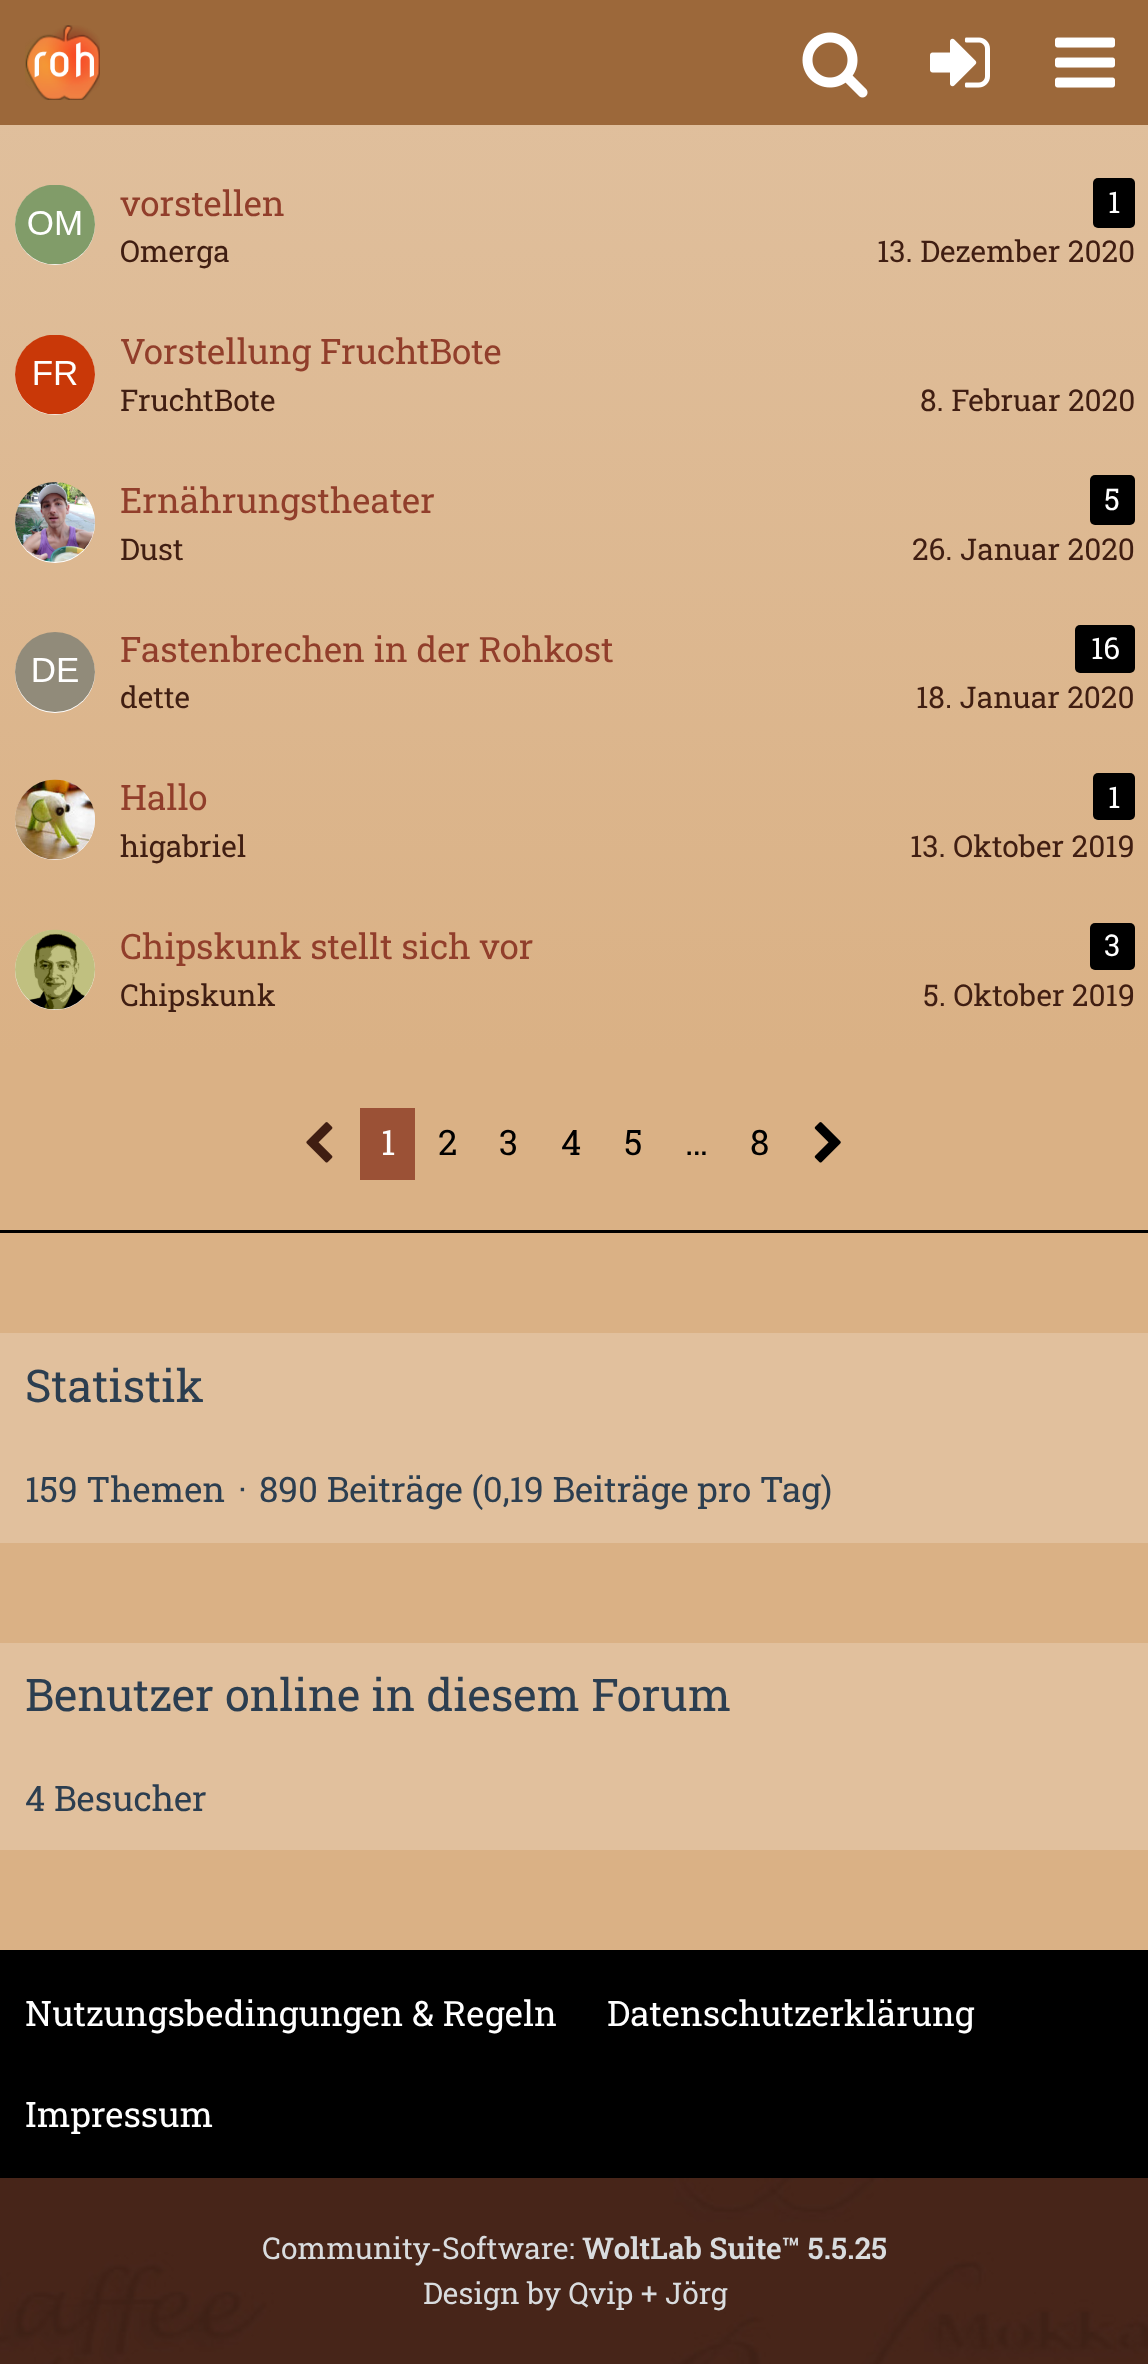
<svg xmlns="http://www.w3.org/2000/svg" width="1148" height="2364">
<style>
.a{font:35px Roboto Slab;fill:#913e2b}
.b{font:30px Roboto Slab;fill:#fff}
.c{font:30px Roboto Slab;fill:#401e12}
.d{font:35px Roboto Slab;fill:#fff}
.e{font:35px Roboto Slab;fill:#000}
.f{font:45px Roboto Slab;fill:#2c3e50}
.g{font:35px Roboto Slab;fill:#2c3e50}
.h{font:30px Roboto Slab;fill:#d9dcde}
.i{font:600 30px Roboto Slab;fill:#d9dcde}
</style>
<defs>
<linearGradient id="g1" gradientUnits="userSpaceOnUse" x1="575" y1="-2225" x2="575" y2="1055"><stop offset="0" stop-color="#eee2d6"/><stop offset="1" stop-color="#dab185"/></linearGradient>
</defs>
<rect width="100%" height="100%" fill="#fff"/>
<image href="1.png" x="0" y="2178" width="1148" height="186"/>
<path fill="#9c683a" d="M0 0h1148v125H0z"/>
<image href="2.png" x="25" y="25" width="75" height="75"/>
<image href="3.png" x="802" y="32" width="66" height="66"/>
<image href="4.png" x="930" y="37" width="60" height="51"/>
<image href="5.png" x="1055" y="37" width="60" height="51"/>
<path fill="#dab185" d="M0 1055h1148v175H0z"/>
<path fill="url(#g1)" d="M0 125h1148v930H0z"/>
<circle fill="#fff" cx="55" cy="225" r="40"/>
<image href="6.png" x="15" y="185" width="80" height="80"/>
<rect fill="#000" x="1093" y="178" width="42" height="50" rx="5"/>
<circle fill="#fff" cx="55" cy="375" r="40"/>
<image href="7.png" x="15" y="335" width="80" height="80"/>
<circle fill="#fff" cx="55" cy="523" r="40"/>
<image href="8.png" x="15" y="482" width="80" height="80"/>
<rect fill="#000" x="1090" y="475" width="45" height="50" rx="5"/>
<circle fill="#fff" cx="55" cy="673" r="40"/>
<image href="9.png" x="15" y="632" width="80" height="80"/>
<rect fill="#000" x="1075" y="625" width="60" height="48" rx="5"/>
<circle fill="#fff" cx="55" cy="820" r="40"/>
<image href="10.png" x="15" y="779" width="80" height="81"/>
<rect fill="#000" x="1093" y="773" width="42" height="47" rx="5"/>
<circle fill="#fff" cx="55" cy="970" r="40"/>
<image href="11.png" x="15" y="929" width="80" height="81"/>
<rect fill="#000" x="1090" y="923" width="45" height="47" rx="5"/>
<image href="12.png" x="306" y="1122" width="27" height="41"/>
<path fill="#9b5136" d="M360 1108h55v72H360z"/>
<image href="13.png" x="814" y="1122" width="27" height="41"/>
<path fill="#dab185" d="M0 1233h1148v717H0z"/>
<path fill="#000" d="M0 1230h1148v3H0z"/>
<path fill="#000" d="M0 1950h1148v228H0z"/>
<path fill="#e1c09d" d="M0 1333h1148v210H0z"/>
<path fill="#e1c09d" d="M0 1643h1148v207H0z"/>
<text class="a" x="120" y="216">vorstellen</text>
<text class="b" x="1108" y="213">1</text>
<text class="c" x="120" y="262">Omerga</text>
<text class="c" x="877" y="262">13. Dezember 2020</text>
<text class="a" x="120" y="364">Vorstellung FruchtBote</text>
<text class="c" x="120" y="411">FruchtBote</text>
<text class="c" x="920" y="411">8. Februar 2020</text>
<text class="a" x="120" y="513">Ernährungstheater</text>
<text class="b" x="1104" y="510">5</text>
<text class="c" x="120" y="560">Dust</text>
<text class="c" x="912" y="560">26. Januar 2020</text>
<text class="a" x="120" y="662">Fastenbrechen in der Rohkost</text>
<text class="b" x="1091" y="659">16</text>
<text class="c" x="120" y="708">dette</text>
<text class="c" x="916" y="708">18. Januar 2020</text>
<text class="a" x="120" y="810">Hallo</text>
<text class="b" x="1108" y="808">1</text>
<text class="c" x="120" y="857">higabriel</text>
<text class="c" x="910" y="857">13. Oktober 2019</text>
<text class="a" x="120" y="959">Chipskunk stellt sich vor</text>
<text class="b" x="1104" y="956">3</text>
<text class="c" x="120" y="1006">Chipskunk</text>
<text class="c" x="923" y="1006">5. Oktober 2019</text>
<text class="d" x="381" y="1155">1</text>
<text class="e" x="438" y="1155">2</text>
<text class="e" x="499" y="1155">3</text>
<text class="e" x="561" y="1155">4</text>
<text class="e" x="624" y="1155">5</text>
<text class="e" x="685" y="1155">…</text>
<text class="e" x="750" y="1155">8</text>
<text class="f" x="25" y="1402">Statistik</text>
<text class="g" x="25" y="1502">159 Themen</text>
<text class="g" x="238" y="1502">·</text>
<text class="g" x="259" y="1502">890 Beiträge (0,19 Beiträge pro Tag)</text>
<text class="f" x="25" y="1711">Benutzer online in diesem Forum</text>
<text class="g" x="25" y="1811">4 Besucher</text>
<text class="d" x="25" y="2026">Nutzungsbedingungen &amp; Regeln</text>
<text class="d" x="607" y="2026">Datenschutzerklärung</text>
<text class="d" x="25" y="2127">Impressum</text>
<text class="h" x="262" y="2259">Community-Software:</text>
<text class="i" x="582" y="2259">WoltLab Suite™ 5.5.25</text>
<text class="h" x="423" y="2304">Design by Qvip + Jörg</text>
</svg>
